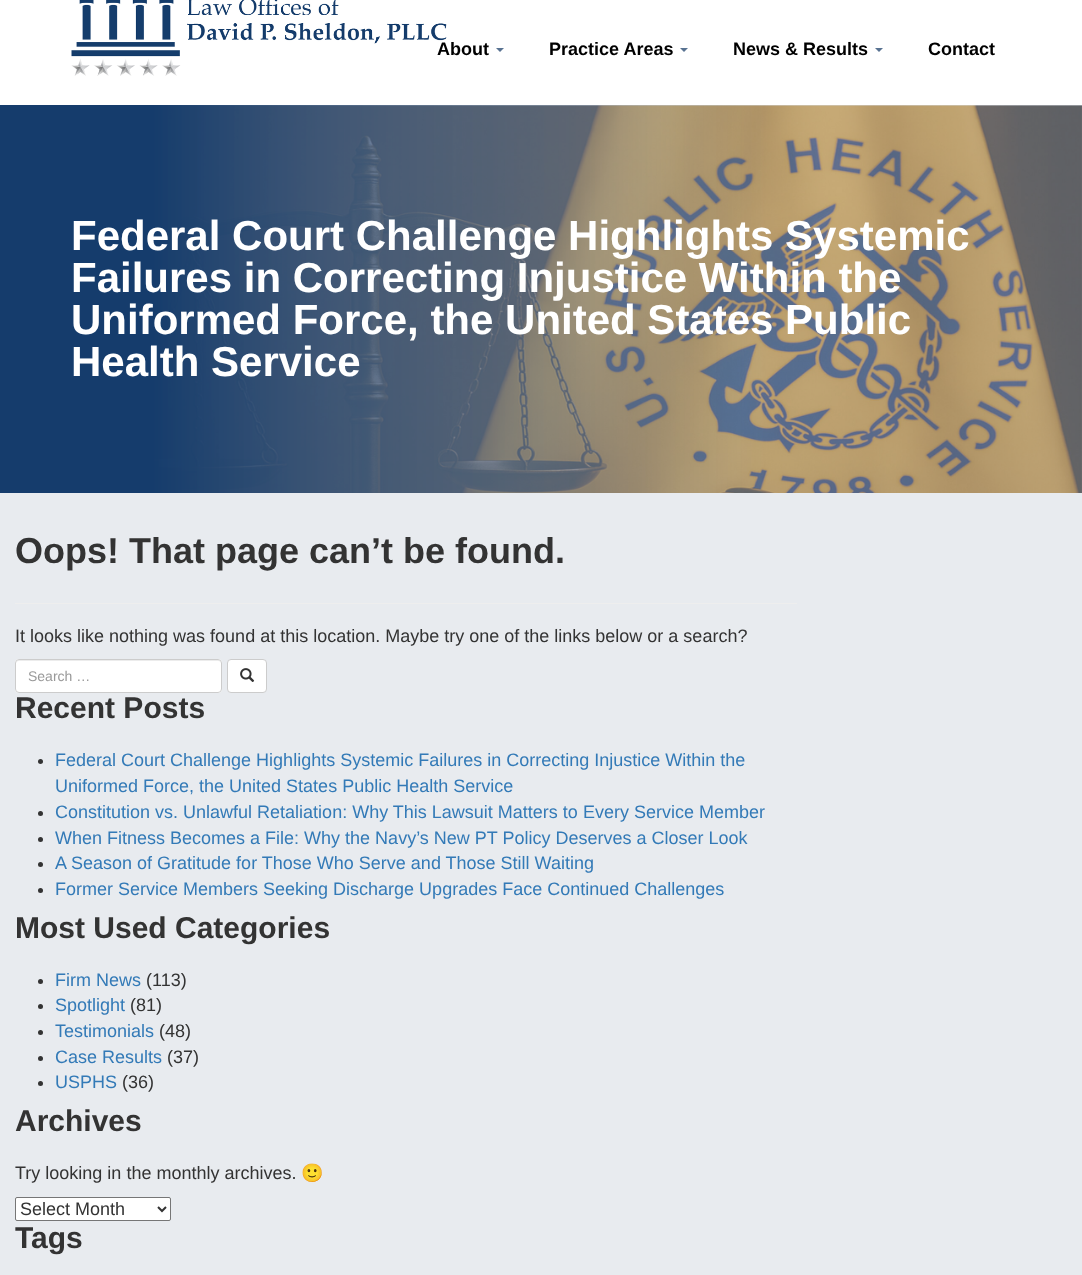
<svg xmlns="http://www.w3.org/2000/svg" width="1082" height="1275">
<style>
.a{font:bold 18px Liberation Sans;fill:#000}
.b{font:bold 42px Liberation Sans;fill:#fff}
.c{font:bold 36px Liberation Sans;fill:#333}
.d{font:18px Liberation Sans;fill:#333}
.e{font:14px Liberation Sans;fill:#999}
.f{font:bold 30px Liberation Sans;fill:#333}
.g{font:18px Liberation Sans;fill:#337ab7}
.h{font:18px Noto Color Emoji;fill:#333}
</style>
<rect width="100%" height="100%" fill="#fff"/>
<path fill="#587291" d="M496 48h8l-4 4z"/>
<path fill="#587291" d="M680 48h8l-4 4z"/>
<path fill="#587291" d="M875 48h8l-4 4z"/>
<image href="2.png" x="0" y="105" width="1082" height="388"/>
<path fill="#e8ebef" d="M0 493h1082v782H0z"/>
<path fill="#eee" d="M15 603h782v1H15z"/>
<rect fill="#fff" x="15" y="659" width="207" height="34" rx="4"/>
<path fill="#ececec" d="M19 661h199c2 0 3 1 3 3c0-2-1-4-3-4h-199c-2 0-3 2-3 4c0-2 1-3 3-3z"/>
<rect fill="none" stroke="#ccc" x="15.5" y="659.5" width="206" height="33" rx="3.5"/>
<rect fill="#fff" stroke="#ccc" x="227.5" y="659.5" width="39" height="33" rx="3.5"/>
<image href="3.png" x="240" y="668" width="15" height="14"/>
<circle fill="#333" cx="40.5" cy="761.5" r="2.5"/>
<circle fill="#333" cx="40.5" cy="813.5" r="2.5"/>
<circle fill="#333" cx="40.5" cy="839.5" r="2.5"/>
<circle fill="#333" cx="40.5" cy="864.5" r="2.5"/>
<circle fill="#333" cx="40.5" cy="890.5" r="2.5"/>
<circle fill="#333" cx="40.5" cy="981.5" r="2.5"/>
<circle fill="#333" cx="40.5" cy="1006.5" r="2.5"/>
<circle fill="#333" cx="40.5" cy="1032.5" r="2.5"/>
<circle fill="#333" cx="40.5" cy="1058.5" r="2.5"/>
<circle fill="#333" cx="40.5" cy="1083.5" r="2.5"/>
<rect fill="#fff" stroke="#767676" x="15.5" y="1197.5" width="155" height="23" rx="1.5"/>
<path fill="none" stroke="#333" stroke-width="2" d="M158 1207l4 4l4-4"/>
<text class="a" x="437" y="55">About</text>
<image href="1.png" x="71" y="0" width="376" height="76"/>
<text class="a" x="549" y="55">Practice Areas</text>
<text class="a" x="733" y="55">News &amp; Results</text>
<text class="a" x="928" y="55">Contact</text>
<text class="b" x="71" y="250">Federal Court Challenge Highlights Systemic</text>
<text class="b" x="71" y="292">Failures in Correcting Injustice Within the</text>
<text class="b" x="71" y="334">Uniformed Force, the United States Public</text>
<text class="b" x="71" y="376">Health Service</text>
<text class="c" x="15" y="563">Oops! That page can’t be found.</text>
<text class="d" x="15" y="642">It looks like nothing was found at this location. Maybe try one of the links below or a search?</text>
<text class="e" x="28" y="681">Search …</text>
<text class="f" x="15" y="718">Recent Posts</text>
<text class="g" x="55" y="766">Federal Court Challenge Highlights Systemic Failures in Correcting Injustice Within the</text>
<text class="g" x="55" y="792">Uniformed Force, the United States Public Health Service</text>
<text class="g" x="55" y="818">Constitution vs. Unlawful Retaliation: Why This Lawsuit Matters to Every Service Member</text>
<text class="g" x="55" y="844">When Fitness Becomes a File: Why the Navy’s New PT Policy Deserves a Closer Look</text>
<text class="g" x="55" y="869">A Season of Gratitude for Those Who Serve and Those Still Waiting</text>
<text class="g" x="55" y="895">Former Service Members Seeking Discharge Upgrades Face Continued Challenges</text>
<text class="f" x="15" y="938">Most Used Categories</text>
<text class="g" x="55" y="986">Firm News</text>
<text class="d" x="146" y="986">(113)</text>
<text class="g" x="55" y="1011">Spotlight</text>
<text class="d" x="130" y="1011">(81)</text>
<text class="g" x="55" y="1037">Testimonials</text>
<text class="d" x="159" y="1037">(48)</text>
<text class="g" x="55" y="1063">Case Results</text>
<text class="d" x="167" y="1063">(37)</text>
<text class="g" x="55" y="1088">USPHS</text>
<text class="d" x="122" y="1088">(36)</text>
<text class="f" x="15" y="1131">Archives</text>
<text class="d" x="15" y="1179">Try looking in the monthly archives.</text>
<text class="h" x="301" y="1179">🙂</text>
<text class="d" x="20" y="1215">Select Month</text>
<text class="f" x="15" y="1248">Tags</text>
</svg>
